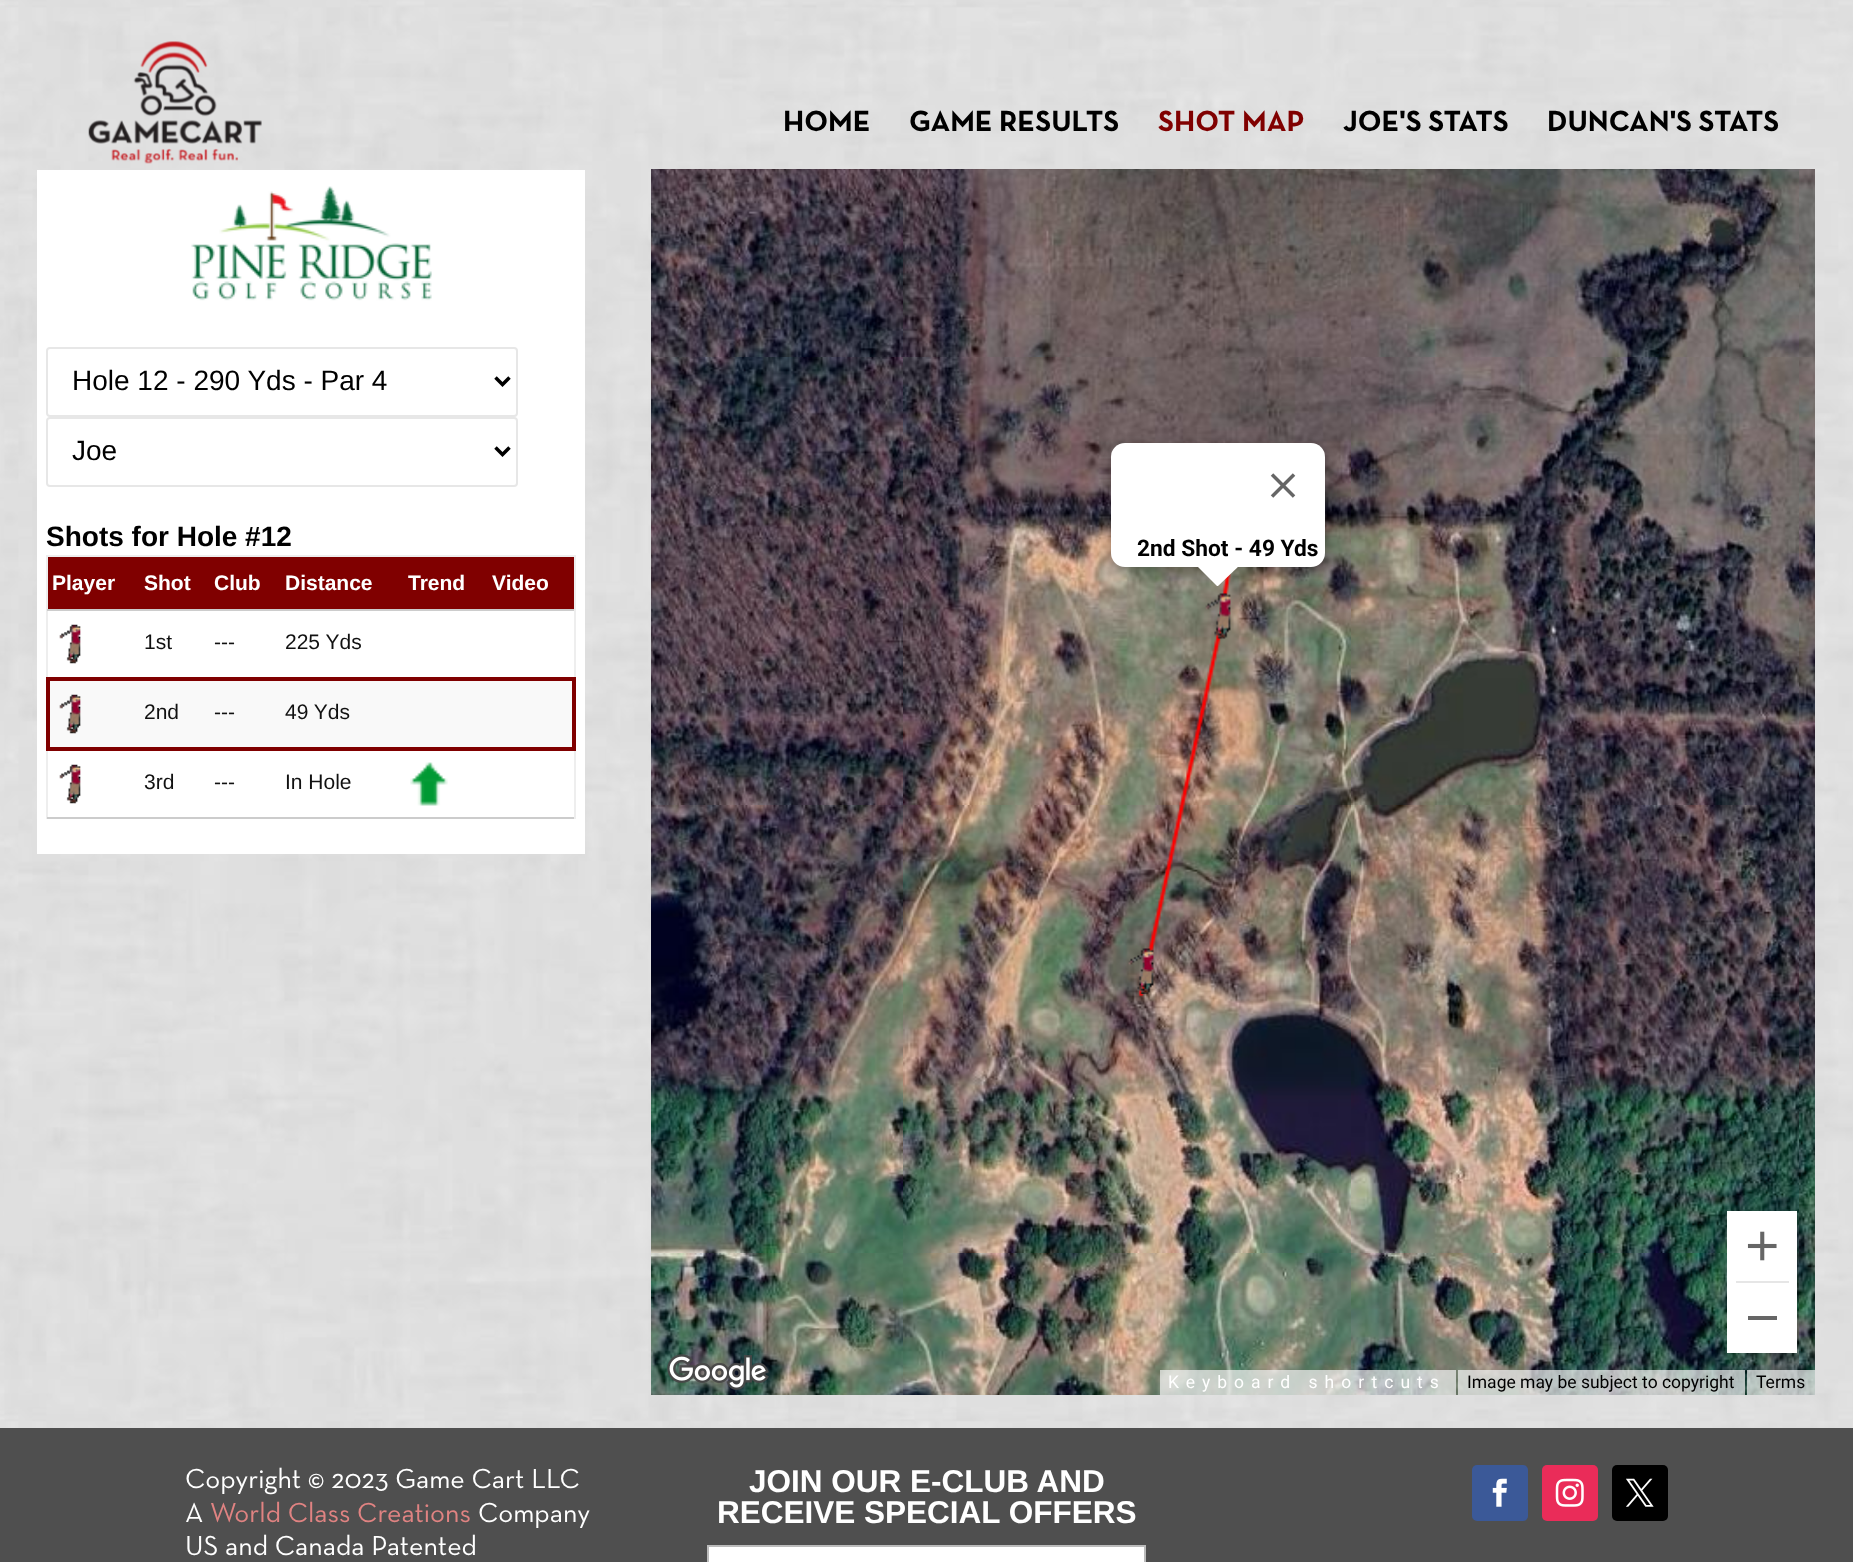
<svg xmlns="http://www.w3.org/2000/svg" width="1853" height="1562">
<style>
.a{font:bold 29.75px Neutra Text;fill:#000}
.b{font:bold 29.75px Neutra Text;fill:#800000}
.c{font:28px Liberation Sans;fill:#000}
.d{font:bold 28px Liberation Sans;fill:#000}
.e{font:bold 21px Liberation Sans;fill:#fff}
.f{font:21px Liberation Sans;fill:#111}
.g{font:bold 22.75px Roboto;fill:#000}
.h{font:17.5px Roboto;letter-spacing:7px;fill:#fff}
.i{font:17.5px Roboto;fill:#000}
.j{font:28px Neutra Text;fill:#fff}
.k{font:28px Neutra Text;fill:#e08382}
.l{font:bold 31.5px Liberation Sans;fill:#fff}
</style>
<rect width="100%" height="100%" fill="#fff"/>
<image href="2.png" x="0" y="0" width="1853" height="1428"/>
<image href="1.png" x="88" y="41" width="174" height="123"/>
<path fill="#fff" d="M37 170h548v684H37z"/>
<image href="3.png" x="191" y="186" width="241" height="115"/>
<rect fill="none" stroke="#e7e7e7" stroke-width="2" x="47" y="348" width="470" height="68" rx="3"/>
<path fill="none" stroke="#000" stroke-width="3.5" d="M495.5 377.5l7 7l7-7"/>
<rect fill="none" stroke="#e7e7e7" stroke-width="2" x="47" y="418" width="470" height="68" rx="3"/>
<path fill="none" stroke="#000" stroke-width="3.5" d="M495.5 447.5l7 7l7-7"/>
<path fill="#eee" d="M46 555h530v2H46z"/>
<path fill="#eee" d="M574 555h2v264H574z"/>
<path fill="#eee" d="M46 555h2v264H46z"/>
<path fill="#ccc" d="M47 609h527v2H47z"/>
<path fill="#800000" d="M48 557h526v52H48z"/>
<image href="4.png" x="59" y="624" width="22" height="40"/>
<path fill="#800000" d="M46 677h530v4H46z"/>
<path fill="#800000" d="M572 677h4v74H572z"/>
<path fill="#800000" d="M46 747h530v4H46z"/>
<path fill="#800000" d="M46 677h4v74H46z"/>
<path fill="#f9f9f9" d="M50 681h522v66H50z"/>
<image href="5.png" x="59" y="694" width="22" height="40"/>
<path fill="#ccc" d="M47 817h527v2H47z"/>
<image href="4.png" x="59" y="764" width="22" height="40"/>
<image href="6.png" x="410" y="762" width="38" height="44"/>
<image href="7.png" x="651" y="169" width="252" height="188"/>
<image href="8.png" x="903" y="169" width="448" height="188"/>
<image href="9.png" x="1351" y="169" width="448" height="188"/>
<image href="10.png" x="1799" y="169" width="16" height="188"/>
<image href="11.png" x="651" y="357" width="252" height="448"/>
<image href="12.png" x="903" y="357" width="448" height="448"/>
<image href="13.png" x="1351" y="357" width="448" height="448"/>
<image href="14.png" x="1799" y="357" width="16" height="448"/>
<image href="15.png" x="651" y="805" width="252" height="448"/>
<image href="16.png" x="903" y="805" width="448" height="448"/>
<image href="17.png" x="1351" y="805" width="448" height="448"/>
<image href="18.png" x="1799" y="805" width="16" height="448"/>
<image href="19.png" x="651" y="1253" width="252" height="142"/>
<image href="20.png" x="903" y="1253" width="448" height="142"/>
<image href="21.png" x="1351" y="1253" width="448" height="142"/>
<image href="22.png" x="1799" y="1253" width="16" height="142"/>
<image href="23.png" x="1179" y="573" width="52" height="232"/>
<image href="24.png" x="1138" y="805" width="48" height="192"/>
<image href="25.png" x="1205" y="592" width="26" height="48"/>
<image href="26.png" x="1128" y="948" width="26" height="46"/>
<rect fill="#0000004d" filter="blur(6px)" x="1110" y="445" width="217" height="127" rx="16"/>
<rect fill="#fff" x="1111" y="443" width="214" height="124" rx="14"/>
<image href="27.png" x="1270" y="473" width="26" height="25"/>
<path fill="#fff" d="M1197 566v-1h43l-22 21h-1z"/>
<rect fill="#0000004d" filter="blur(3.5px)" x="1729" y="1215" width="67" height="138" rx="2"/>
<path fill="#fff" d="M1727 1211h70v142H1727z"/>
<image href="28.png" x="1747" y="1231" width="30" height="30"/>
<path fill="#e6e6e6" d="M1736 1281h53v2H1736z"/>
<path fill="#666" d="M1748 1316h29v4H1748z"/>
<image href="29.png" x="667" y="1354" width="102" height="36"/>
<path fill="#f5f5f5b3" d="M1160 1370h296v25H1160z"/>
<path fill="#f5f5f5b3" d="M1458 1370h287v25H1458z"/>
<path fill="#f5f5f5b3" d="M1747 1370h68v25H1747z"/>
<path fill="#4f4f4f" d="M0 1428h1853v134H0z"/>
<path fill="#fff" stroke="#bbb" stroke-width="2" d="M708 1546h437v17H708z"/>
<rect fill="#3b5998" x="1472" y="1465" width="56" height="56" rx="5"/>
<image href="30.png" x="1492" y="1478" width="15" height="29"/>
<rect fill="#ea2c59" x="1542" y="1465" width="56" height="56" rx="5"/>
<image href="31.png" x="1555" y="1478" width="29" height="29"/>
<rect fill="#000" x="1612" y="1465" width="56" height="56" rx="5"/>
<image href="32.png" x="1626" y="1478" width="28" height="29"/>
<text class="a" x="783" y="131">HOME</text>
<text class="a" x="909" y="131">GAME RESULTS</text>
<text class="b" x="1158" y="131">SHOT MAP</text>
<text class="a" x="1343" y="131">JOE'S STATS</text>
<text class="a" x="1547" y="131">DUNCAN'S STATS</text>
<text class="c" x="72" y="390">Hole 12 - 290 Yds - Par 4</text>
<text class="c" x="72" y="460">Joe</text>
<text class="d" x="46" y="546">Shots for Hole #12</text>
<text class="e" x="52" y="590">Player</text>
<text class="e" x="144" y="590">Shot</text>
<text class="e" x="214" y="590">Club</text>
<text class="e" x="285" y="590">Distance</text>
<text class="e" x="408" y="590">Trend</text>
<text class="e" x="492" y="590">Video</text>
<text class="f" x="144" y="649">1st</text>
<text class="f" x="214" y="649">---</text>
<text class="f" x="285" y="649">225 Yds</text>
<text class="f" x="144" y="719">2nd</text>
<text class="f" x="214" y="719">---</text>
<text class="f" x="285" y="719">49 Yds</text>
<text class="f" x="144" y="789">3rd</text>
<text class="f" x="214" y="789">---</text>
<text class="f" x="285" y="789">In Hole</text>
<text class="g" x="1137" y="556">2nd Shot - 49 Yds</text>
<text class="h" x="1168" y="1388">Keyboard shortcuts</text>
<text class="i" x="1467" y="1388">Image may be subject to copyright</text>
<text class="i" x="1756" y="1388">Terms</text>
<text class="j" x="185" y="1488">Copyright © 2023 Game Cart LLC</text>
<text class="j" x="185" y="1522">A</text>
<text class="k" x="210" y="1522">World Class Creations</text>
<text class="j" x="478" y="1522">Company</text>
<text class="j" x="185" y="1555">US and Canada Patented</text>
<text class="l" x="749" y="1492">JOIN OUR E-CLUB AND</text>
<text class="l" x="717" y="1523">RECEIVE SPECIAL OFFERS</text>
</svg>
